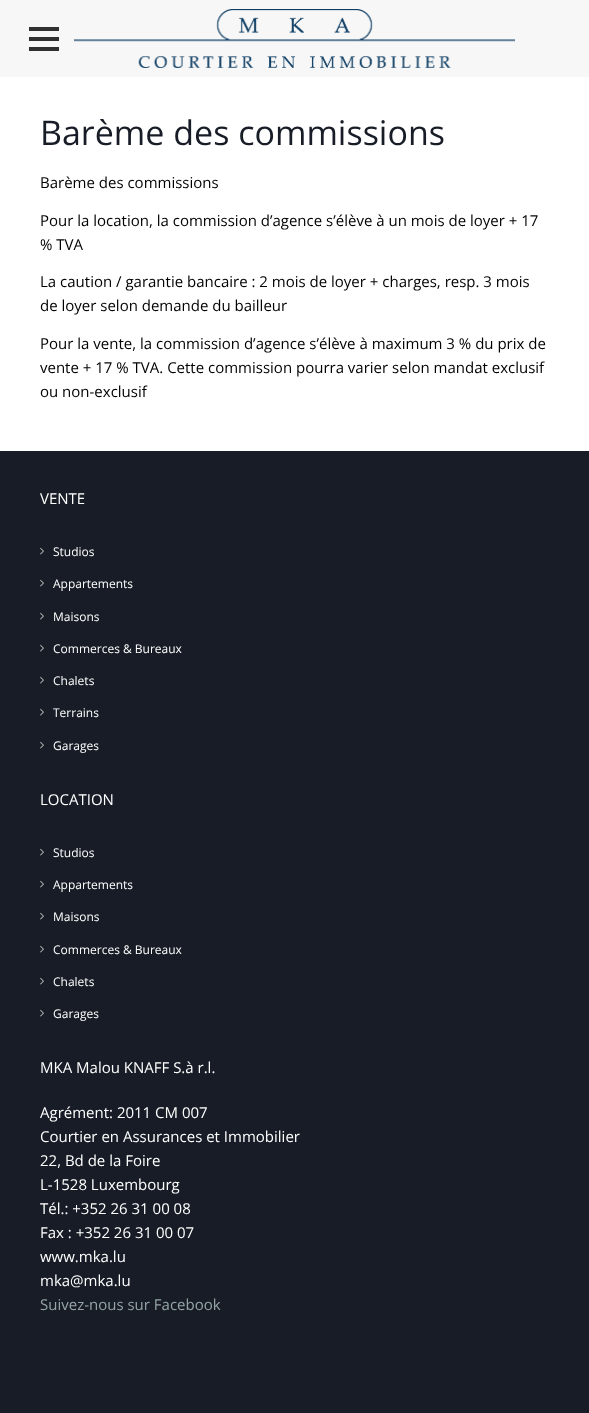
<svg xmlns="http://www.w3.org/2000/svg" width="589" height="1413">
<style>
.a{font:34px Open Sans;fill:#171c26}
.b{font:15px Open Sans;fill:#000}
.c{font:15px Open Sans;fill:#fff}
.d{font:12px Open Sans;fill:#fff}
.e{font:15px Open Sans;fill:#95a5a6}
</style>
<rect width="100%" height="100%" fill="#fff"/>
<path fill="#f7f7f7" d="M0 0h589v77H0z"/>
<path fill="#303030" d="M29 27h30v4H29z"/>
<path fill="#303030" d="M29 47h30v4H29z"/>
<path fill="#303030" d="M29 37h30v4H29z"/>
<image href="1.png" x="74" y="9" width="441" height="59"/>
<path fill="#171c26" d="M0 451h589v962H0z"/>
<image href="2.png" x="40" y="547" width="4" height="8"/>
<image href="2.png" x="40" y="579" width="4" height="8"/>
<image href="2.png" x="40" y="612" width="4" height="8"/>
<image href="2.png" x="40" y="644" width="4" height="8"/>
<image href="2.png" x="40" y="676" width="4" height="8"/>
<image href="2.png" x="40" y="708" width="4" height="8"/>
<image href="2.png" x="40" y="741" width="4" height="8"/>
<image href="2.png" x="40" y="848" width="4" height="8"/>
<image href="2.png" x="40" y="880" width="4" height="8"/>
<image href="2.png" x="40" y="912" width="4" height="8"/>
<image href="2.png" x="40" y="945" width="4" height="8"/>
<image href="2.png" x="40" y="977" width="4" height="8"/>
<image href="2.png" x="40" y="1009" width="4" height="8"/>
<text class="a" x="40" y="145">Barème des commissions</text>
<text class="b" x="40" y="188">Barème des commissions</text>
<text class="b" x="40" y="226">Pour la location, la commission d’agence s’élève à un mois de loyer + 17</text>
<text class="b" x="40" y="250">% TVA</text>
<text class="b" x="40" y="287">La caution / garantie bancaire : 2 mois de loyer + charges, resp. 3 mois</text>
<text class="b" x="40" y="311">de loyer selon demande du bailleur</text>
<text class="b" x="40" y="349">Pour la vente, la commission d’agence s’élève à maximum 3 % du prix de</text>
<text class="b" x="40" y="373">vente + 17 % TVA. Cette commission pourra varier selon mandat exclusif</text>
<text class="b" x="40" y="397">ou non-exclusif</text>
<text class="c" x="40" y="504">VENTE</text>
<text class="d" x="53" y="556">Studios</text>
<text class="d" x="53" y="588">Appartements</text>
<text class="d" x="53" y="621">Maisons</text>
<text class="d" x="53" y="653">Commerces &amp; Bureaux</text>
<text class="d" x="53" y="685">Chalets</text>
<text class="d" x="53" y="717">Terrains</text>
<text class="d" x="53" y="750">Garages</text>
<text class="c" x="40" y="805">LOCATION</text>
<text class="d" x="53" y="857">Studios</text>
<text class="d" x="53" y="889">Appartements</text>
<text class="d" x="53" y="921">Maisons</text>
<text class="d" x="53" y="954">Commerces &amp; Bureaux</text>
<text class="d" x="53" y="986">Chalets</text>
<text class="d" x="53" y="1018">Garages</text>
<text class="c" x="40" y="1073">MKA Malou KNAFF S.à r.l.</text>
<text class="c" x="40" y="1118">Agrément: 2011 CM 007</text>
<text class="c" x="40" y="1142">Courtier en Assurances et Immobilier</text>
<text class="c" x="40" y="1166">22, Bd de la Foire</text>
<text class="c" x="40" y="1190">L-1528 Luxembourg</text>
<text class="c" x="40" y="1214">Tél.: +352 26 31 00 08</text>
<text class="c" x="40" y="1238">Fax : +352 26 31 00 07</text>
<text class="c" x="40" y="1262">www.mka.lu</text>
<text class="c" x="40" y="1286">mka@mka.lu</text>
<text class="e" x="40" y="1310">Suivez-nous sur Facebook</text>
</svg>
